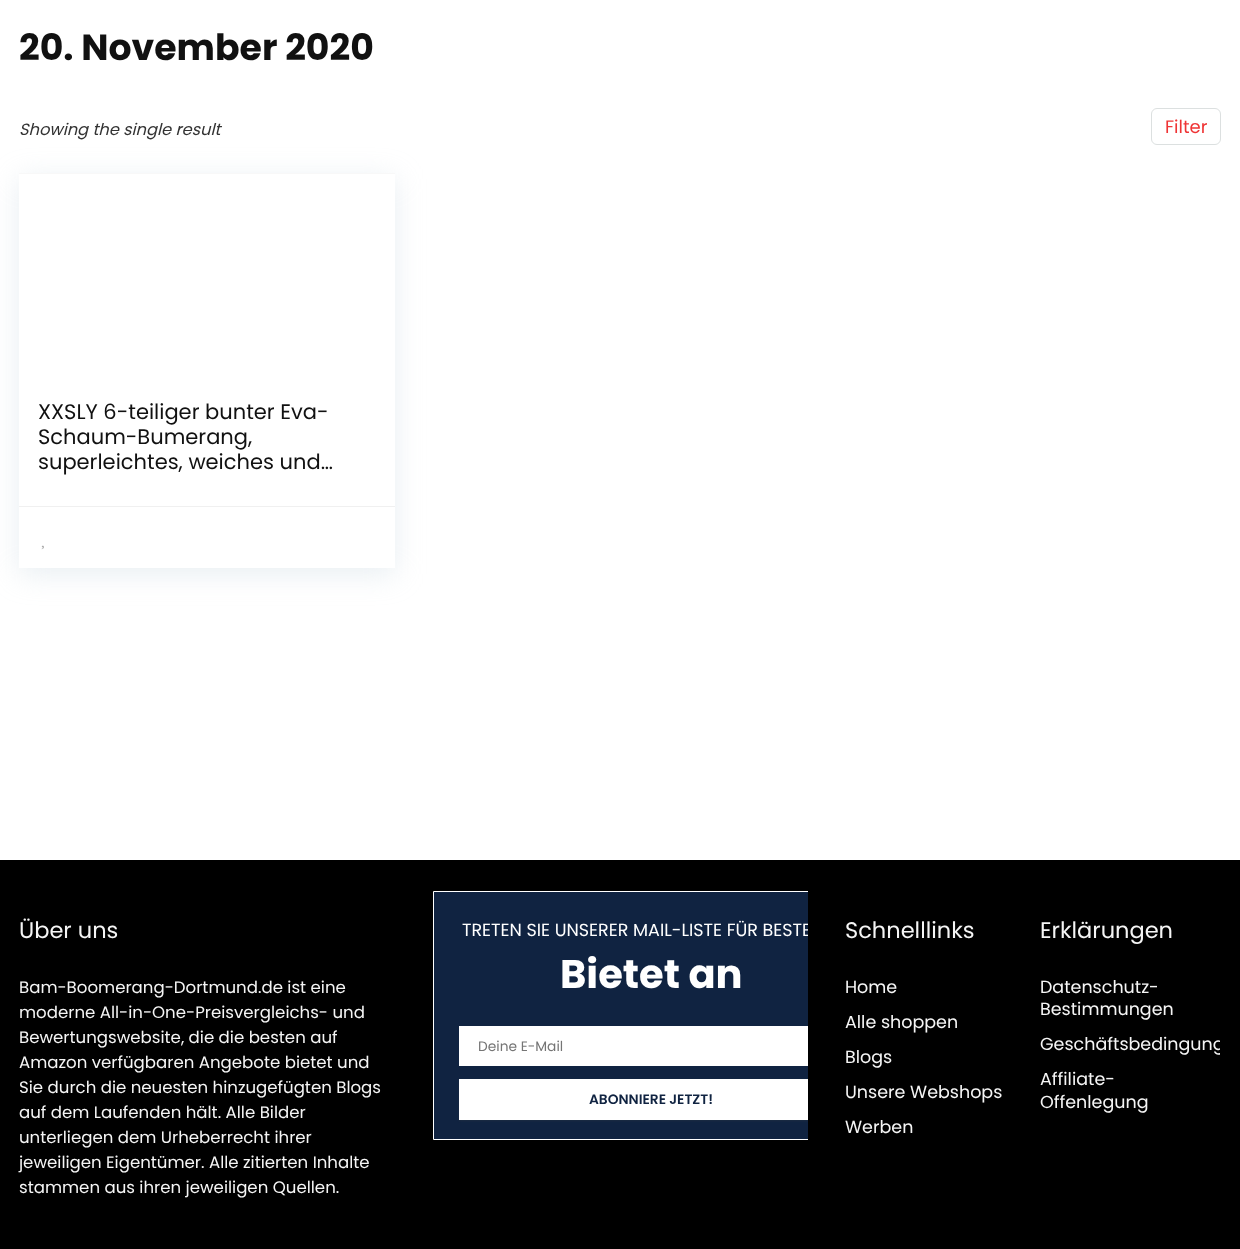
<svg xmlns="http://www.w3.org/2000/svg" width="1240" height="1249">
<style>
.a{font:bold 36.25px Poppins;fill:#111}
.b{font:italic 16.25px Poppins;fill:#333}
.c{font:18px Poppins;fill:#ef3435}
.d{font:21px Poppins;fill:#111}
.e{font:22.5px Poppins;fill:#f5f5f5}
.f{font:16.6px Poppins;fill:#f5f5f5}
.g{font:17.5px Poppins;fill:#fff}
.h{font:bold 40px Poppins;fill:#fff}
.i{font:13.75px Poppins;fill:#757575}
.j{font:600 13.75px Poppins;fill:#102341}
.k{font:17.5px Poppins;fill:#f5f5f5}
</style>
<defs>
<clipPath id="clip1"><path d="M433 891h375v249H433z"/></clipPath>
<clipPath id="clip2"><path d="M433 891h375v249H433z"/></clipPath>
<clipPath id="clip3"><path d="M845 891h375v265H845z"/></clipPath>
</defs>
<rect width="100%" height="100%" fill="#fff"/>
<rect fill="none" stroke="#dce0e0" x="1151.5" y="108.5" width="69" height="36" rx="5.5"/>
<path fill="#bccfdb59" filter="blur(14.5px)" d="M19 179h376v395H19z"/>
<path fill="#fff" d="M19 174h376v394H19z"/>
<path fill="#f8f8f8" d="M19 173h376v1H19z"/>
<path fill="#f0f0f0" d="M19 506h376v1H19z"/>
<image href="1.png" x="41" y="545" width="3" height="5"/>
<path fill="#000" d="M0 860h1240v389H0z"/>
<path fill="#102341" d="M434 892h374v247H434z"/>
<g clip-path="url(#clip1)">
<path fill="none" stroke="#fff" d="M433.5 891.5h436v248H433.5z"/>
</g>
<path fill="#fff" d="M459 1026h349v40H459z"/>
<g clip-path="url(#clip2)">
<path fill="#3c40434d" filter="blur(1px)" d="M459 1080h385v41H459z"/>
</g>
<path fill="#fff" d="M459 1079h349v41H459z"/>
<text class="a" x="19" y="60">20. November 2020</text>
<text class="b" x="19" y="135">Showing the single result</text>
<text class="c" x="1165" y="133">Filter</text>
<text class="d" x="38" y="419">XXSLY 6-teiliger bunter Eva-</text>
<text class="d" x="38" y="444">Schaum-Bumerang,</text>
<text class="d" x="38" y="469">superleichtes, weiches und…</text>
<text class="e" x="19" y="938">Über uns</text>
<text class="f" x="19" y="993">Bam-Boomerang-Dortmund.de ist eine</text>
<text class="f" x="19" y="1018">moderne All-in-One-Preisvergleichs- und</text>
<text class="f" x="19" y="1043">Bewertungswebsite, die die besten auf</text>
<text class="f" x="19" y="1068">Amazon verfügbaren Angebote bietet und</text>
<text class="f" x="19" y="1093">Sie durch die neuesten hinzugefügten Blogs</text>
<text class="f" x="19" y="1118">auf dem Laufenden hält. Alle Bilder</text>
<text class="f" x="19" y="1143">unterliegen dem Urheberrecht ihrer</text>
<text class="f" x="19" y="1168">jeweiligen Eigentümer. Alle zitierten Inhalte</text>
<text class="f" x="19" y="1193">stammen aus ihren jeweiligen Quellen.</text>
<g clip-path="url(#clip1)">
<text class="g" x="462" y="936">TRETEN SIE UNSERER MAIL-LISTE FÜR BESTE</text>
</g>
<text class="h" x="560" y="988">Bietet an</text>
<text class="i" x="478" y="1051">Deine E-Mail</text>
<text class="j" x="589" y="1104">ABONNIERE JETZT!</text>
<text class="e" x="845" y="938">Schnelllinks</text>
<text class="k" x="845" y="993">Home</text>
<text class="k" x="845" y="1028">Alle shoppen</text>
<text class="k" x="845" y="1063">Blogs</text>
<text class="k" x="845" y="1098">Unsere Webshops</text>
<text class="k" x="845" y="1133">Werben</text>
<text class="e" x="1040" y="938">Erklärungen</text>
<text class="k" x="1040" y="993">Datenschutz-</text>
<text class="k" x="1040" y="1015">Bestimmungen</text>
<g clip-path="url(#clip3)">
<text class="k" x="1040" y="1050">Geschäftsbedingung</text>
</g>
<text class="k" x="1040" y="1085">Affiliate-</text>
<text class="k" x="1040" y="1108">Offenlegung</text>
</svg>
